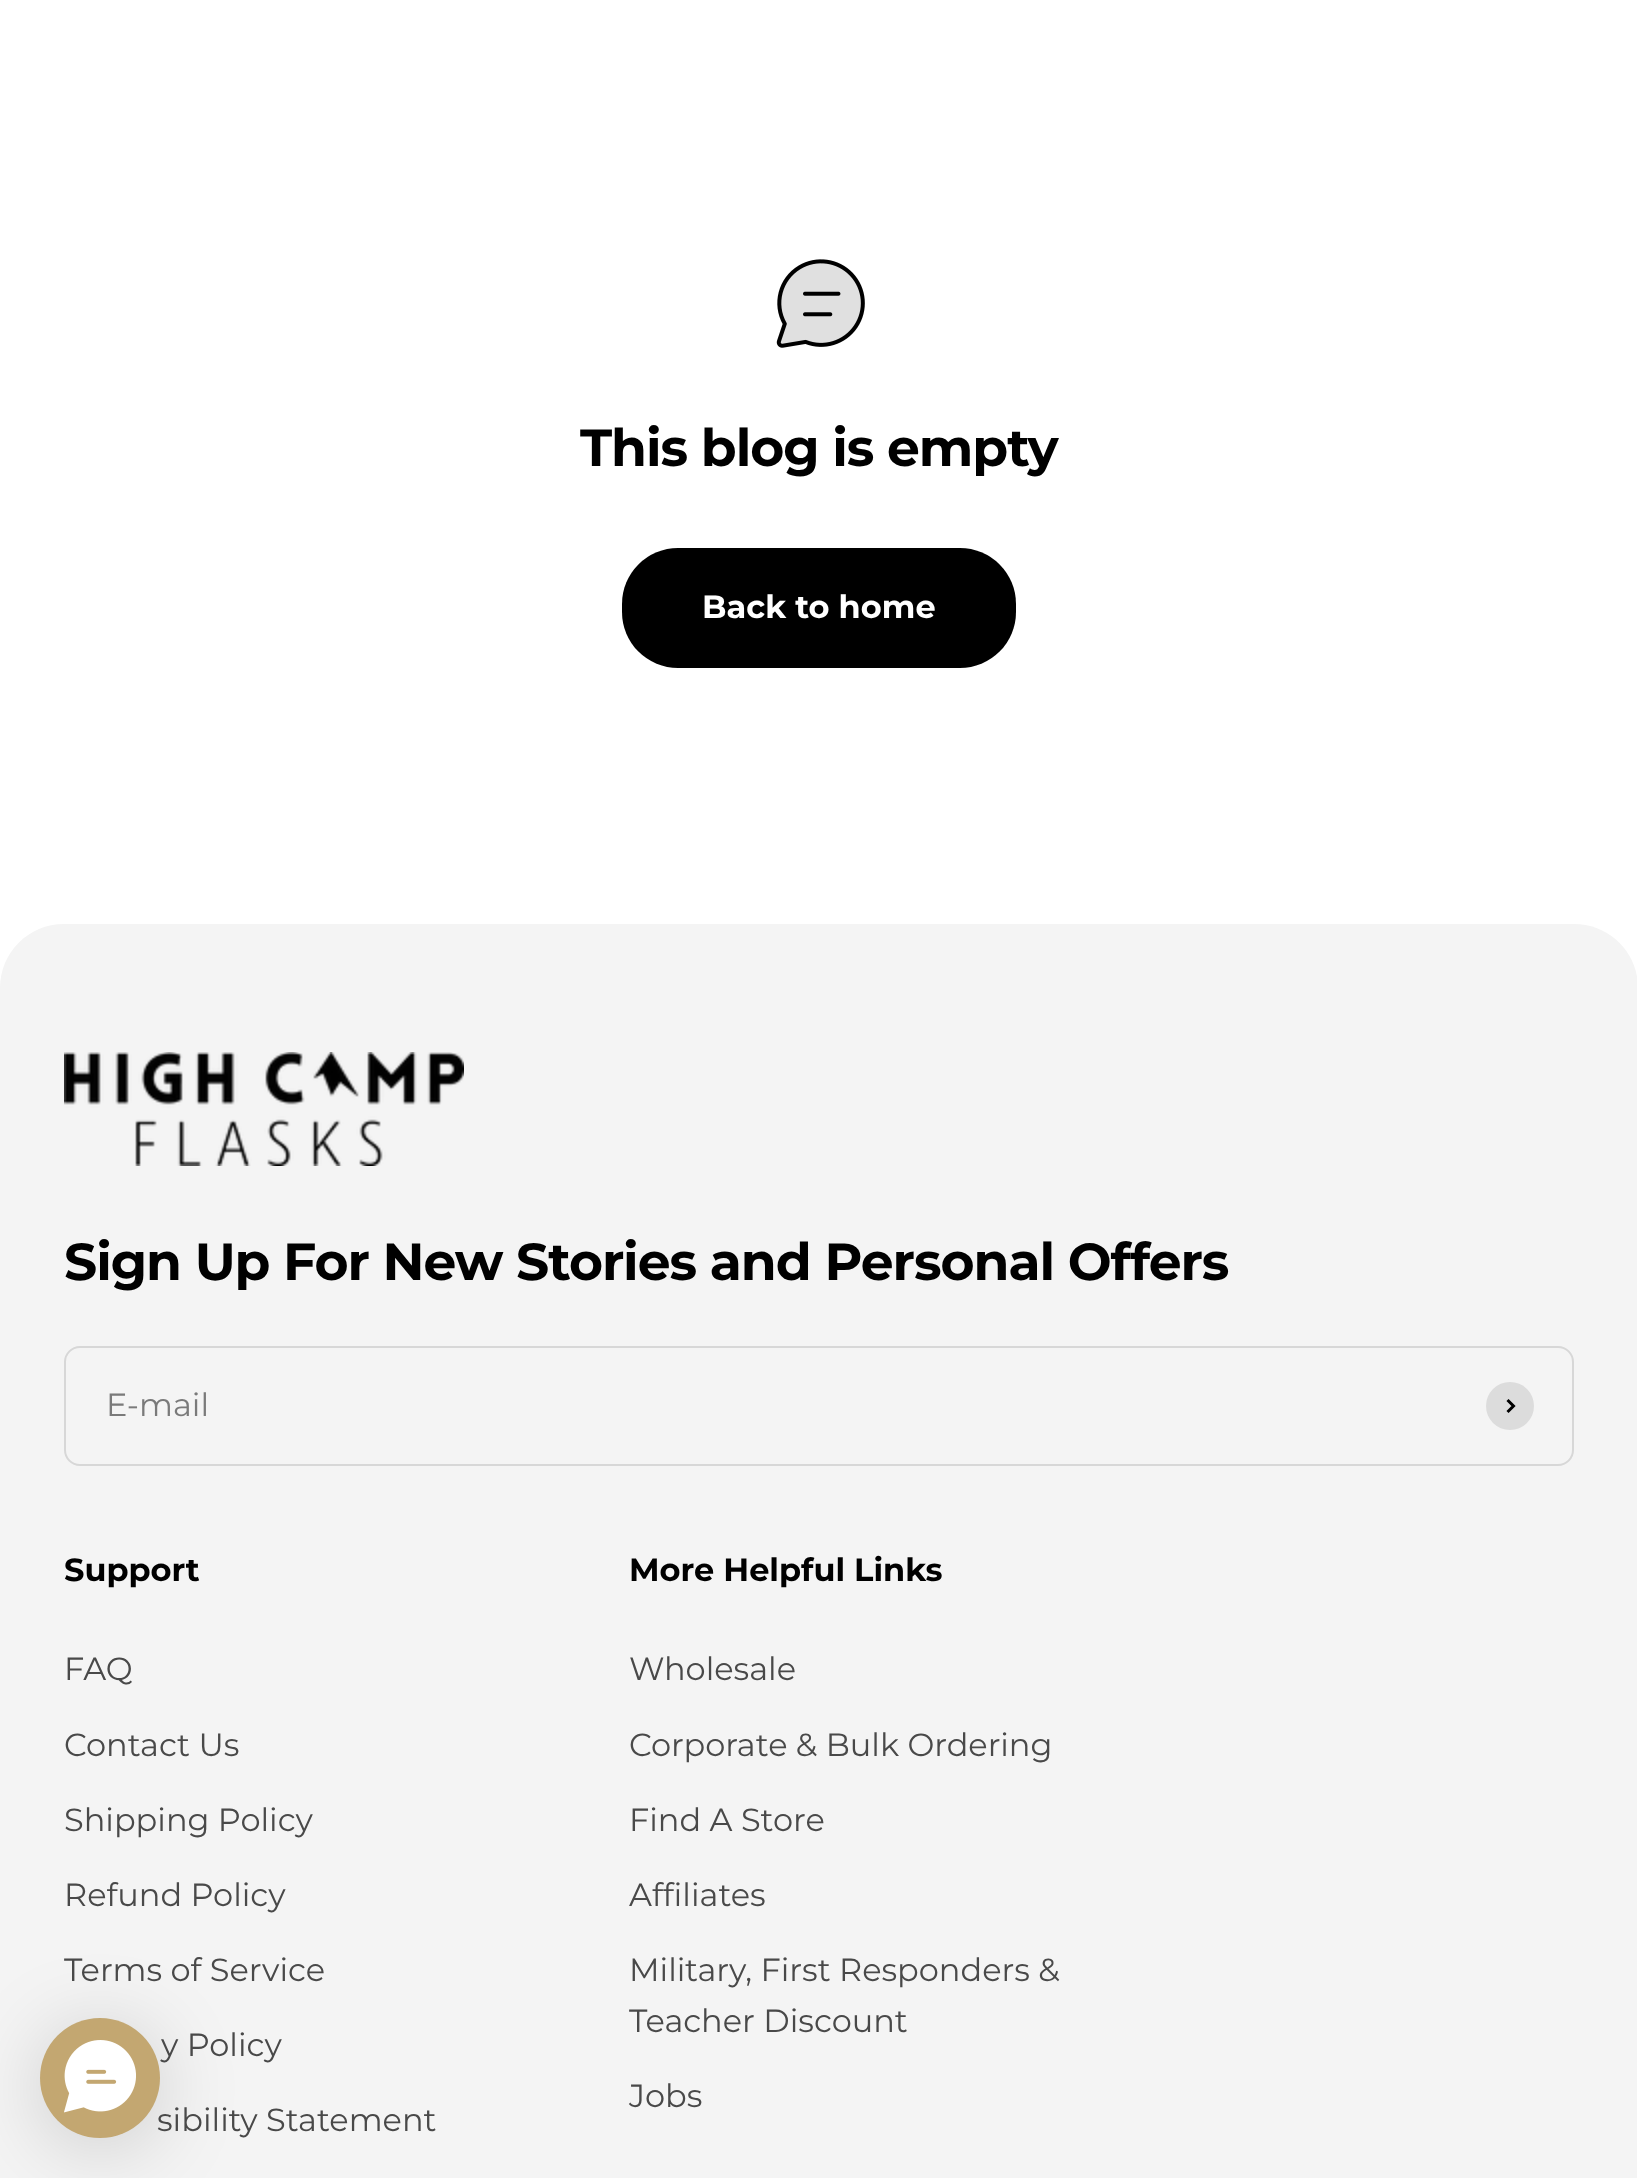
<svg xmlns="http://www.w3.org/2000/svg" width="1637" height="2178">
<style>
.a{font:bold 52px Montserrat;letter-spacing:-1.05px;fill:#000}
.b{font:bold 32px Montserrat;fill:#fff}
.c{font:32px Montserrat;fill:#7a7a7a}
.d{font:bold 32px Montserrat;fill:#000}
.e{font:32px Montserrat;fill:#494949}
</style>
<rect width="100%" height="100%" fill="#fff"/>
<image href="1.png" x="776" y="259" width="89" height="89"/>
<rect fill="#000" x="622" y="548" width="394" height="120" rx="56"/>
<path fill="#f4f4f4" d="M64 924h1510c35.5 0 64 28.5 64 64v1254h-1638v-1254c0-35.5 28.5-64 64-64z"/>
<image href="2.png" x="64" y="1052" width="400" height="114"/>
<rect fill="none" stroke="#d7d7d7" stroke-width="2" x="65" y="1347" width="1508" height="118" rx="15"/>
<circle fill="#dcdcdc" cx="1510" cy="1406" r="24"/>
<path fill="none" stroke="#000" stroke-width="3" d="M1507.5 1412l6-6l-6-6"/>
<rect fill="#00000029" filter="blur(40px)" x="40" y="2028" width="120" height="120" rx="60"/>
<text class="a" x="580" y="466">This blog is empty</text>
<text class="b" x="702" y="618">Back to home</text>
<text class="a" x="64" y="1280">Sign Up For New Stories and Personal Offers</text>
<text class="c" x="106" y="1416">E-mail</text>
<text class="d" x="64" y="1581">Support</text>
<text class="e" x="64" y="1680">FAQ</text>
<text class="e" x="64" y="1756">Contact Us</text>
<text class="e" x="64" y="1831">Shipping Policy</text>
<text class="e" x="64" y="1906">Refund Policy</text>
<text class="e" x="64" y="1981">Terms of Service</text>
<text class="e" x="161" y="2056">y Policy</text>
<text class="e" x="157" y="2131">sibility Statement</text>
<text class="d" x="629" y="1581">More Helpful Links</text>
<text class="e" x="629" y="1680">Wholesale</text>
<text class="e" x="629" y="1756">Corporate &amp; Bulk Ordering</text>
<text class="e" x="629" y="1831">Find A Store</text>
<text class="e" x="629" y="1906">Affiliates</text>
<text class="e" x="629" y="1981">Military, First Responders &amp;</text>
<text class="e" x="629" y="2032">Teacher Discount</text>
<text class="e" x="629" y="2107">Jobs</text>
<circle fill="#c3a771" cx="100" cy="2078" r="60"/>
<image href="3.png" x="64" y="2040" width="72" height="73"/>
</svg>
